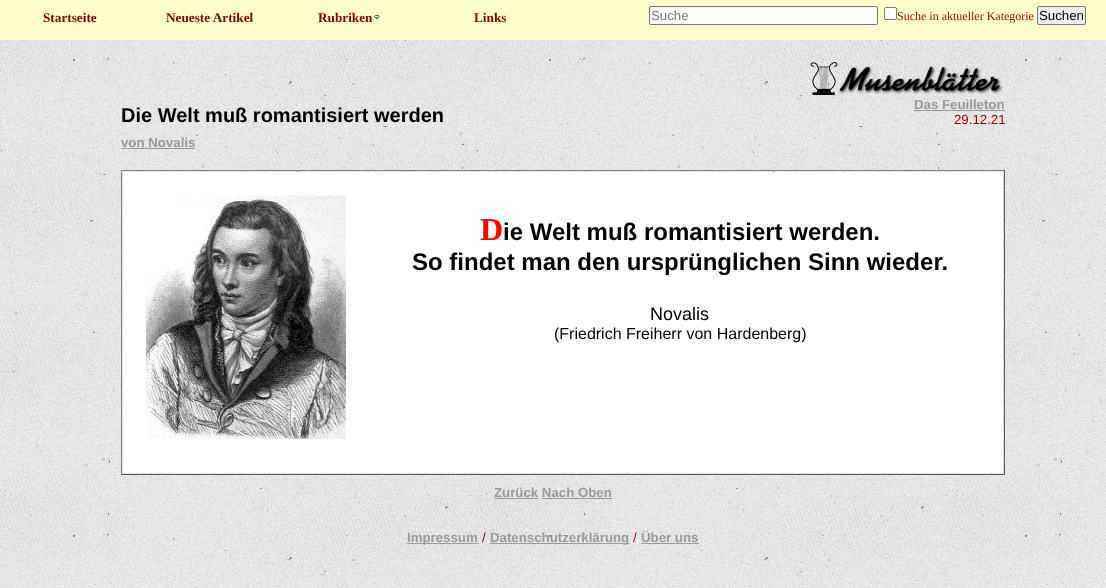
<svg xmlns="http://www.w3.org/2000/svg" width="1106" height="588">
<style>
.a{font:bold 13.25px Liberation Serif;fill:#800000}
.b{font:13.25px Liberation Sans;fill:#757575}
.c{font:12px Liberation Serif;fill:#900}
.d{font:13.25px Liberation Sans;fill:#000}
.e{font:bold 20px Liberation Sans;fill:#000}
.f{font:bold 13.25px Liberation Sans;fill:#999}
.g{font:13.25px Liberation Sans;fill:#900}
.h{font:bold 32px Liberation Serif;fill:#f00}
.i{font:bold 24px Liberation Sans;fill:#000}
.j{font:18px Liberation Sans;fill:#000}
.k{font:16px Liberation Sans;fill:#000}
</style>
<rect width="100%" height="100%" fill="#fff"/>
<image href="1.png" x="0" y="40" width="1106" height="548"/>
<path fill="#ffc" d="M0 0h1106v40H0z"/>
<image href="2.png" x="374" y="15" width="6" height="4"/>
<rect fill="#fff" stroke="#767676" x="649.5" y="6.5" width="228" height="18" rx="1.5"/>
<rect fill="#fff" stroke="#767676" x="884.5" y="7.5" width="12" height="12" rx="1.5"/>
<rect fill="#efefef" stroke="#767676" x="1037.5" y="6.5" width="48" height="18" rx="1.5"/>
<path fill="#999" d="M121 148h74v1H121z"/>
<image href="3.png" x="810" y="62" width="193" height="33"/>
<path fill="#999" d="M914 110h91v1H914z"/>
<path fill="#808080" d="M121 170h884v1H121z"/>
<path fill="#555" d="M1004 170h1v305H1004z"/>
<path fill="#555" d="M121 474h884v1H121z"/>
<path fill="#808080" d="M121 170h1v305H121z"/>
<path fill="#fff" d="M123 172h880v301H123z"/>
<image href="4.png" x="146" y="195" width="200" height="244"/>
<path fill="#999" d="M494 498h44v1H494z"/>
<path fill="#999" d="M542 498h70v1H542z"/>
<path fill="#999" d="M407 543h72v1H407z"/>
<path fill="#999" d="M490 543h140v1H490z"/>
<path fill="#999" d="M641 543h58v1H641z"/>
<text class="a" x="43" y="22">Startseite</text>
<text class="a" x="166" y="22">Neueste Artikel</text>
<text class="a" x="318" y="22">Rubriken</text>
<text class="a" x="474" y="22">Links</text>
<text class="b" x="651" y="20">Suche</text>
<text class="c" x="897" y="20">Suche in aktueller Kategorie</text>
<text class="d" x="1039" y="20">Suchen</text>
<text class="e" x="121" y="122">Die Welt muß romantisiert werden</text>
<text class="f" x="121" y="147">von Novalis</text>
<text class="f" x="914" y="109">Das Feuilleton</text>
<text class="g" x="954" y="124">29.12.21</text>
<text class="h" x="480" y="240">D</text>
<text class="i" x="503" y="240">ie Welt muß romantisiert werden.</text>
<text class="i" x="412" y="270">So findet man den ursprünglichen Sinn wieder.</text>
<text class="j" x="650" y="320">Novalis</text>
<text class="k" x="554" y="339">(Friedrich Freiherr von Hardenberg)</text>
<text class="f" x="494" y="497">Zurück Nach Oben</text>
<text class="f" x="407" y="542">Impressum</text>
<text class="g" x="482" y="542">/</text>
<text class="f" x="490" y="542">Datenschutzerklärung</text>
<text class="g" x="633" y="542">/</text>
<text class="f" x="641" y="542">Über uns</text>
</svg>
